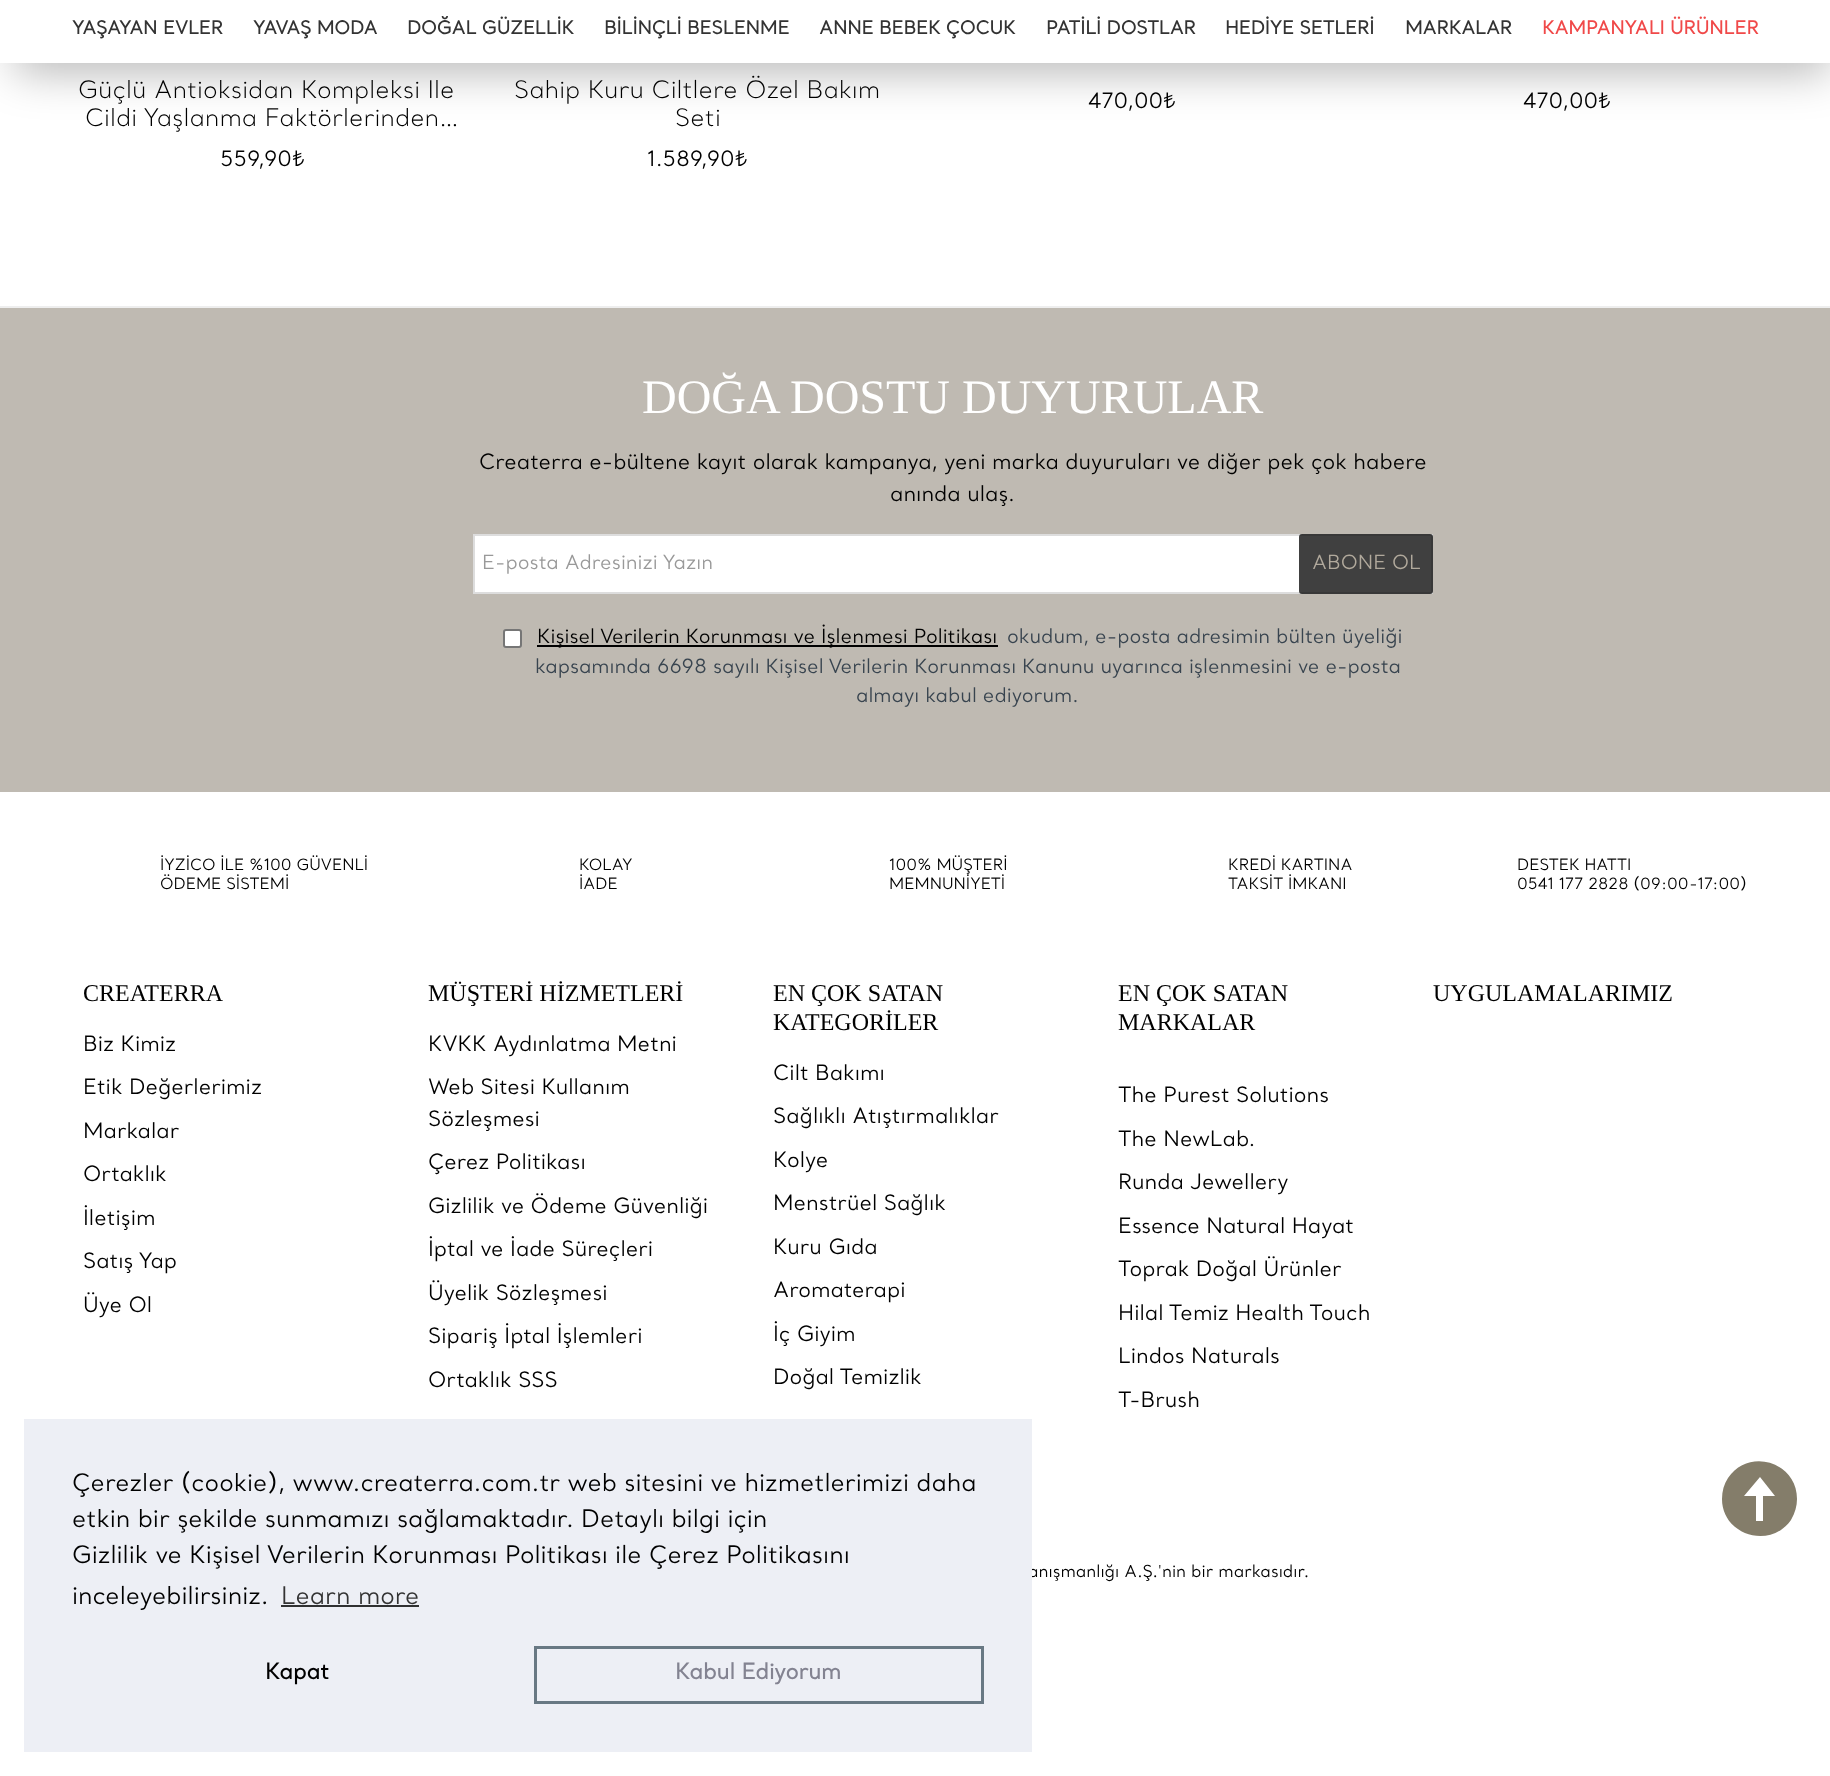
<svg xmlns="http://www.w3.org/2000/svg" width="1830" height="1776">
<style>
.a{font:bold 18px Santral;fill:#333}
.b{font:bold 18px Santral;fill:#f04949}
.c{font:300 24px Santral;fill:#000}
.d{font:21px Santral;fill:#000}
.e{font:48px Liberation Serif;fill:#fff}
.f{font:19.5px Santral;fill:#999}
.g{font:19.5px Santral;fill:#b1a99c}
.h{font:19.5px Santral;fill:#000}
.i{font:19.5px Santral;fill:#38444f}
.j{font:15.5px Santral;fill:#000}
.k{font:24px Liberation Serif;fill:#000}
.l{font:16.5px Santral;fill:#000}
.m{font:24px Santral;fill:#000}
.n{font:24px Santral;fill:#333}
.o{font:bold 21.5px Santral;fill:#000}
.p{font:bold 21.5px Santral;fill:#838391}
</style>
<rect width="100%" height="100%" fill="#fff"/>
<path fill="#0000004d" filter="blur(22.5px)" d="M15 23h1815v48H15z"/>
<path fill="#fff" d="M0 0h1830v63H0z"/>
<path fill="#eee" d="M0 306h1830v2H0z"/>
<path fill="#bfbab2" d="M0 308h1830v484H0z"/>
<path fill="#fff" stroke="#ddd" stroke-width="2" d="M474 535h958v58H474z"/>
<rect fill="#000000bf" x="1299" y="534" width="134" height="60" rx="3"/>
<rect fill="#fff" stroke="#767676" stroke-width="2" x="504" y="630" width="17" height="17" rx="2"/>
<path fill="#000" d="M537 645h461v2H537z"/>
<path fill="#847d6a" d="M1722 1499c0 36 48 51 69 21c4-7 6-14 6-21c0-37-48-52-69-21c-4 6-6 13-6 21zm53-3h-12v25h-7v-25h-12l16-19z"/>
<text class="a" x="72" y="34">YAŞAYAN EVLER</text>
<text class="a" x="253" y="34">YAVAŞ MODA</text>
<text class="a" x="407" y="34">DOĞAL GÜZELLİK</text>
<text class="a" x="604" y="34">BİLİNÇLİ BESLENME</text>
<text class="a" x="819" y="34">ANNE BEBEK ÇOCUK</text>
<text class="a" x="1046" y="34">PATİLİ DOSTLAR</text>
<text class="a" x="1225" y="34">HEDİYE SETLERİ</text>
<text class="a" x="1405" y="34">MARKALAR</text>
<text class="b" x="1542" y="34">KAMPANYALI ÜRÜNLER</text>
<text class="c" x="78" y="98">Güçlü Antioksidan Kompleksi Ile</text>
<text class="c" x="85" y="126">Cildi Yaşlanma Faktörlerinden…</text>
<text class="d" x="220" y="166">559,90₺</text>
<text class="c" x="514" y="98">Sahip Kuru Ciltlere Özel Bakım</text>
<text class="c" x="675" y="126">Seti</text>
<text class="d" x="647" y="166">1.589,90₺</text>
<text class="d" x="1088" y="108">470,00₺</text>
<text class="d" x="1523" y="108">470,00₺</text>
<text class="e" x="642" y="413">DOĞA DOSTU DUYURULAR</text>
<text class="d" x="479" y="469">Createrra e-bültene kayıt olarak kampanya, yeni marka duyuruları ve diğer pek çok habere</text>
<text class="d" x="890" y="501">anında ulaş.</text>
<text class="f" x="482" y="569">E-posta Adresinizi Yazın</text>
<text class="g" x="1312" y="569">ABONE OL</text>
<text class="h" x="537" y="643">Kişisel Verilerin Korunması ve İşlenmesi Politikası</text>
<text class="i" x="1007" y="643">okudum, e-posta adresimin bülten üyeliği</text>
<text class="i" x="535" y="673">kapsamında 6698 sayılı Kişisel Verilerin Korunması Kanunu uyarınca işlenmesini ve e-posta</text>
<text class="i" x="856" y="702">almayı kabul ediyorum.</text>
<text class="j" x="160" y="870">İYZİCO İLE %100 GÜVENLİ</text>
<text class="j" x="160" y="889">ÖDEME SİSTEMİ</text>
<text class="j" x="579" y="870">KOLAY</text>
<text class="j" x="579" y="889">İADE</text>
<text class="j" x="889" y="870">100% MÜŞTERİ</text>
<text class="j" x="889" y="889">MEMNUNİYETİ</text>
<text class="j" x="1228" y="870">KREDİ KARTINA</text>
<text class="j" x="1228" y="889">TAKSİT İMKANI</text>
<text class="j" x="1517" y="870">DESTEK HATTI</text>
<text class="j" x="1517" y="889">0541 177 2828 (09:00-17:00)</text>
<text class="k" x="83" y="1001">CREATERRA</text>
<text class="d" x="83" y="1051">Biz Kimiz</text>
<text class="d" x="83" y="1094">Etik Değerlerimiz</text>
<text class="d" x="83" y="1138">Markalar</text>
<text class="d" x="83" y="1181">Ortaklık</text>
<text class="d" x="83" y="1225">İletişim</text>
<text class="d" x="83" y="1268">Satış Yap</text>
<text class="d" x="83" y="1312">Üye Ol</text>
<text class="k" x="428" y="1001">MÜŞTERİ HİZMETLERİ</text>
<text class="d" x="428" y="1051">KVKK Aydınlatma Metni</text>
<text class="d" x="428" y="1094">Web Sitesi Kullanım</text>
<text class="d" x="428" y="1126">Sözleşmesi</text>
<text class="d" x="428" y="1169">Çerez Politikası</text>
<text class="d" x="428" y="1213">Gizlilik ve Ödeme Güvenliği</text>
<text class="d" x="428" y="1256">İptal ve İade Süreçleri</text>
<text class="d" x="428" y="1300">Üyelik Sözleşmesi</text>
<text class="d" x="428" y="1343">Sipariş İptal İşlemleri</text>
<text class="d" x="428" y="1387">Ortaklık SSS</text>
<text class="k" x="773" y="1001">EN ÇOK SATAN</text>
<text class="k" x="773" y="1030">KATEGORİLER</text>
<text class="d" x="773" y="1080">Cilt Bakımı</text>
<text class="d" x="773" y="1123">Sağlıklı Atıştırmalıklar</text>
<text class="d" x="773" y="1167">Kolye</text>
<text class="d" x="773" y="1210">Menstrüel Sağlık</text>
<text class="d" x="773" y="1254">Kuru Gıda</text>
<text class="d" x="773" y="1297">Aromaterapi</text>
<text class="d" x="773" y="1341">İç Giyim</text>
<text class="d" x="773" y="1384">Doğal Temizlik</text>
<text class="k" x="1118" y="1001">EN ÇOK SATAN</text>
<text class="k" x="1118" y="1030">MARKALAR</text>
<text class="d" x="1118" y="1102">The Purest Solutions</text>
<text class="d" x="1118" y="1146">The NewLab.</text>
<text class="d" x="1118" y="1189">Runda Jewellery</text>
<text class="d" x="1118" y="1233">Essence Natural Hayat</text>
<text class="d" x="1118" y="1276">Toprak Doğal Ürünler</text>
<text class="d" x="1118" y="1320">Hilal Temiz Health Touch</text>
<text class="d" x="1118" y="1363">Lindos Naturals</text>
<text class="d" x="1118" y="1407">T-Brush</text>
<text class="k" x="1433" y="1001">UYGULAMALARIMIZ</text>
<text class="l" x="1028" y="1577">anışmanlığı A.Ş.'nin bir markasıdır.</text>
<path fill="#edeff5" d="M24 1419h1008v333H24z"/>
<text class="m" x="72" y="1491">Çerezler (cookie), www.createrra.com.tr web sitesini ve hizmetlerimizi daha</text>
<text class="m" x="72" y="1527">etkin bir şekilde sunmamızı sağlamaktadır. Detaylı bilgi için</text>
<text class="m" x="72" y="1563">Gizlilik ve Kişisel Verilerin Korunması Politikası ile Çerez Politikasını</text>
<text class="m" x="72" y="1604">inceleyebilirsiniz.</text>
<text class="n" x="281" y="1604">Learn more</text>
<path fill="#2f3031" d="M281 1605h138v2H281z"/>
<text class="o" x="265" y="1679">Kapat</text>
<path fill="none" stroke="#687883" stroke-width="3" d="M535.5 1647.5h447v55H535.5z"/>
<text class="p" x="675" y="1679">Kabul Ediyorum</text>
</svg>
